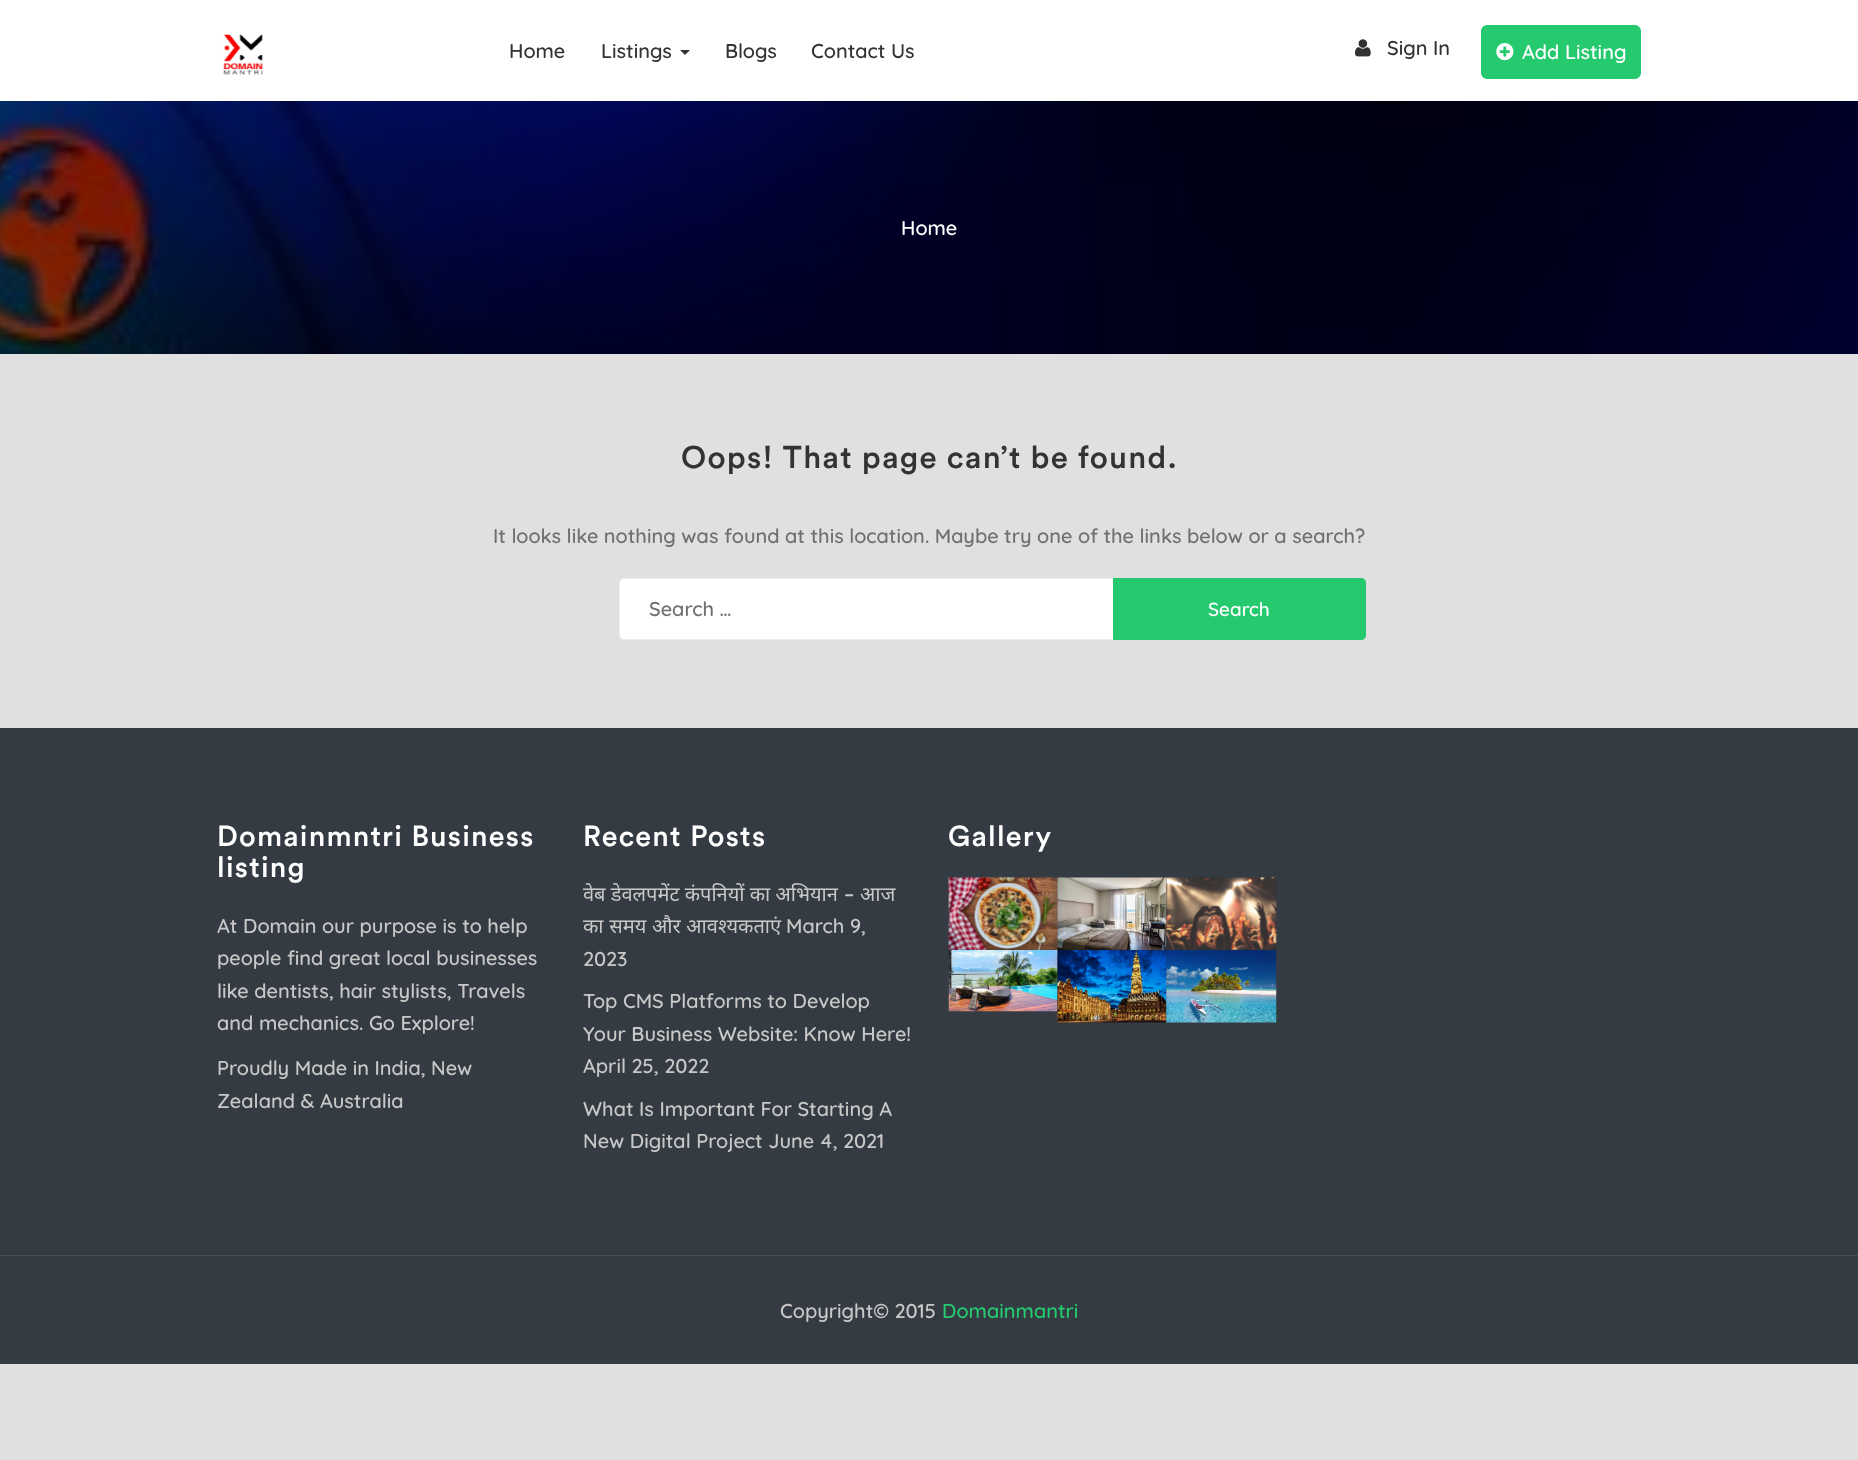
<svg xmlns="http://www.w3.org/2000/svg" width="1858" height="1460">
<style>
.a{font:500 20px Quicksand;fill:#333}
.b{font:500 20px Quicksand;fill:#fff}
.c{font:500 31.25px Circular;letter-spacing:1.25px;fill:#333}
.d{font:500 20px Quicksand;fill:#707070}
.e{font:500 19px Quicksand;fill:#fff}
.f{font:500 28.75px Circular;letter-spacing:1.25px;fill:#fff}
.g{font:500 20px Quicksand;fill:#c8c8c8}
.h{font:20px Noto Sans;fill:#c8c8c8}
.i{font:500 20px Quicksand;fill:#25ca6f}
</style>
<rect width="100%" height="100%" fill="#e0e0e0"/>
<path fill="#fff" d="M0 0h1858v101H0z"/>
<image href="1.png" x="223" y="34" width="40" height="41"/>
<path fill="#333" d="M680 50h10l-5 5z"/>
<image href="2.png" x="1355" y="39" width="16" height="18"/>
<rect fill="#25ca6f" stroke="#25ca6f" stroke-width="3" x="1482.5" y="26.5" width="157" height="51" rx="4.5"/>
<image href="3.png" x="1496" y="43" width="18" height="18"/>
<image href="4.png" x="0" y="101" width="1858" height="253"/>
<path fill="#fff" stroke="#eee" d="M624 578.5h615.5v61h-615.5c-2.5 0-4.5-2-4.5-4.5v-52c0-2.5 2-4.5 4.5-4.5z"/>
<path fill="#25ca6f" d="M1113 578h248c3 0 5 2 5 5v52c0 3-2 5-5 5h-248z"/>
<path fill="#343b42" d="M0 728h1858v636H0z"/>
<image href="5.png" x="948" y="877" width="110" height="74"/>
<image href="6.png" x="1057" y="877" width="110" height="73"/>
<image href="7.png" x="1165" y="877" width="112" height="74"/>
<image href="8.png" x="948" y="950" width="110" height="62"/>
<image href="9.png" x="1057" y="950" width="110" height="73"/>
<image href="10.png" x="1166" y="950" width="111" height="73"/>
<path fill="#4a5057" d="M0 1255h1858v1H0z"/>
<text class="a" x="509" y="58">Home</text>
<text class="a" x="601" y="58">Listings</text>
<text class="a" x="725" y="58">Blogs</text>
<text class="a" x="811" y="58">Contact Us</text>
<text class="a" x="1387" y="55">Sign In</text>
<text class="b" x="1522" y="59">Add Listing</text>
<text class="b" x="901" y="235">Home</text>
<text class="c" x="681" y="468">Oops! That page can’t be found.</text>
<text class="d" x="493" y="543">It looks like nothing was found at this location. Maybe try one of the links below or a search?</text>
<text class="d" x="649" y="616">Search …</text>
<text class="e" x="1208" y="616">Search</text>
<text class="f" x="217" y="846">Domainmntri Business</text>
<text class="f" x="217" y="877">listing</text>
<text class="g" x="217" y="933">At Domain our purpose is to help</text>
<text class="g" x="217" y="965">people find great local businesses</text>
<text class="g" x="217" y="998">like dentists, hair stylists, Travels</text>
<text class="g" x="217" y="1030">and mechanics. Go Explore!</text>
<text class="g" x="217" y="1075">Proudly Made in India, New</text>
<text class="g" x="217" y="1108">Zealand &amp; Australia</text>
<text class="f" x="583" y="846">Recent Posts</text>
<text class="h" x="583" y="901">वेब डेवलपमेंट कंपनियों का अभियान</text>
<text class="g" x="844" y="901">–</text>
<text class="h" x="860" y="901">आज</text>
<text class="h" x="583" y="933" word-spacing="0.5">का समय और आवश्यकताएं</text>
<text class="g" x="786" y="933">March 9,</text>
<text class="g" x="583" y="966">2023</text>
<text class="g" x="583" y="1008">Top CMS Platforms to Develop</text>
<text class="g" x="583" y="1041">Your Business Website: Know Here!</text>
<text class="g" x="583" y="1073">April 25, 2022</text>
<text class="g" x="583" y="1116">What Is Important For Starting A</text>
<text class="g" x="583" y="1148">New Digital Project June 4, 2021</text>
<text class="f" x="948" y="846">Gallery</text>
<text class="g" x="780" y="1318">Copyright© 2015</text>
<text class="i" x="942" y="1318">Domainmantri</text>
</svg>
